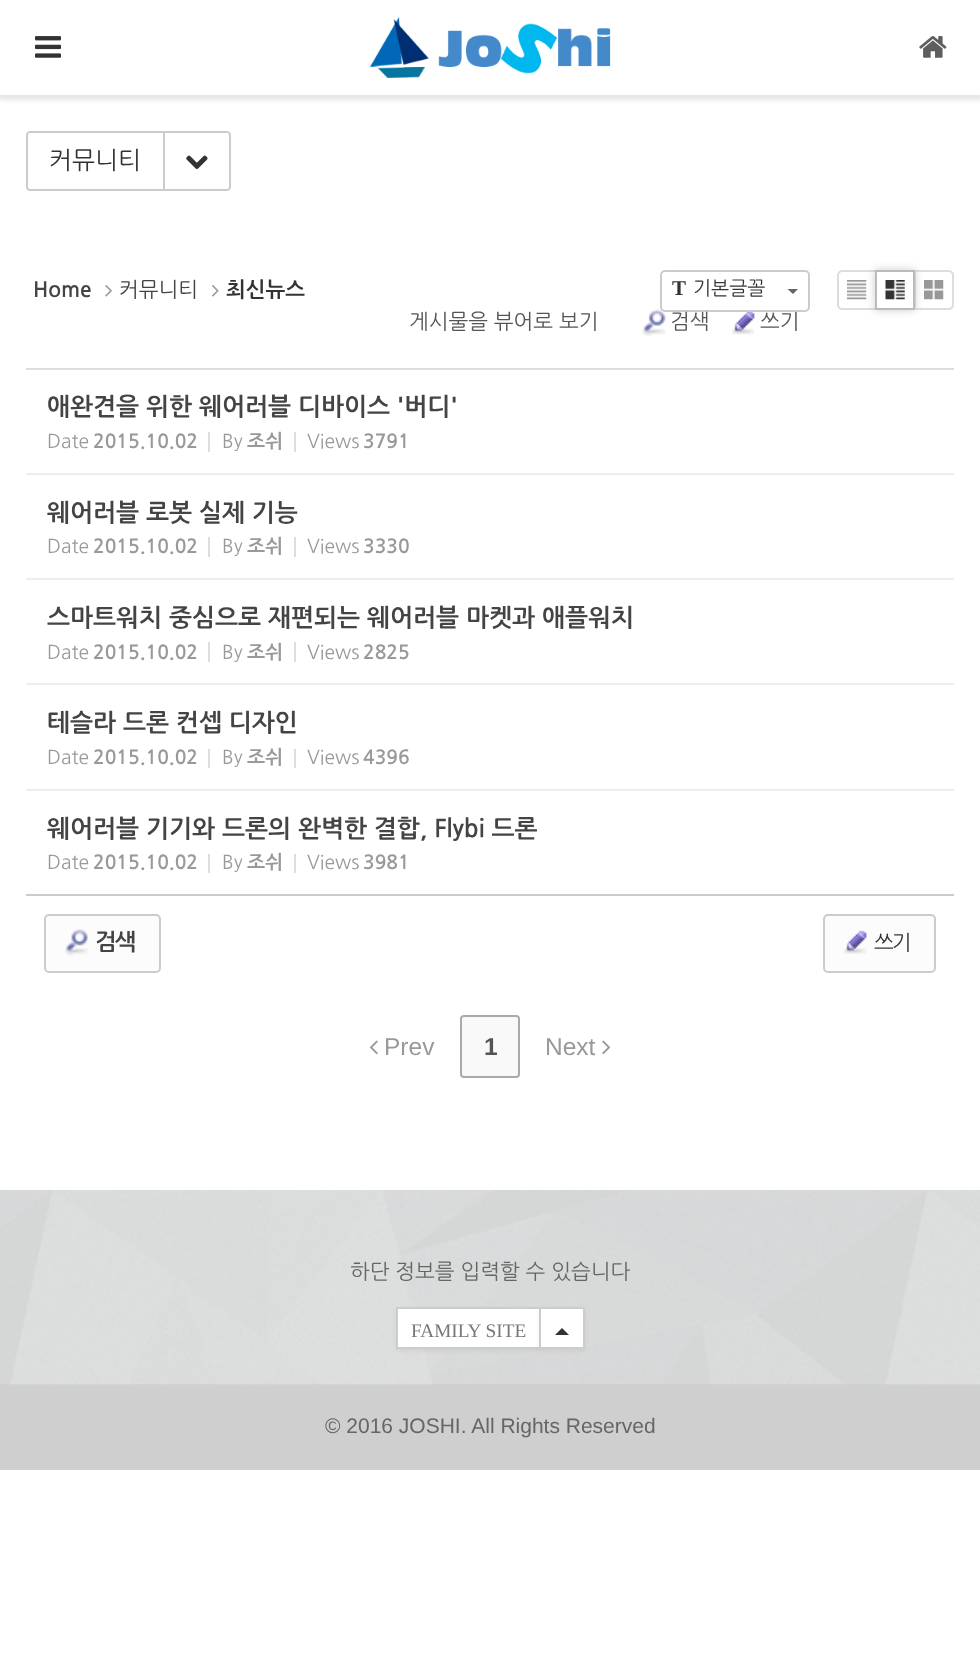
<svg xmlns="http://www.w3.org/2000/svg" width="980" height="1673">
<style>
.a{font:24.5px NanumGothic;fill:#333}
.b{font:bold 21px NanumGothic;fill:#444}
.c{font:21px NanumGothic;fill:#444}
.d{font:bold 21px NanumGothic;fill:#333}
.e{font:21px NanumGothic;fill:#555}
.f{font:19.25px NanumGothic;fill:#333}
.g{font:bold 21px Liberation Serif;fill:#333}
.h{font:bold 24.5px 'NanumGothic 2';fill:#444}
.i{font:19.25px NanumGothic;fill:#999}
.j{font:bold 19.25px NanumGothic;fill:#999}
.k{font:bold 23px NanumGothic;letter-spacing:-2px;fill:#444}
.l{font:21px NanumGothic;letter-spacing:-2px;fill:#333}
.m{font:24.5px Liberation Sans;fill:#999}
.n{font:bold 24.5px Liberation Sans;letter-spacing:-2px;fill:#555}
.o{font:21px NanumGothic;fill:#666}
.p{font:19.25px Liberation Serif;fill:#777}
.q{font:21px Liberation Sans;fill:#666}
</style>
<defs>
<clipPath id="clip1"><path d="M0 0h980v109h-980zm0 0h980v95h-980z" clip-rule="evenodd"/></clipPath>
<clipPath id="clip2"><path d="M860 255h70v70h-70zm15 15h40v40h-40z" clip-rule="evenodd"/></clipPath>
</defs>
<rect width="100%" height="100%" fill="#fff"/>
<g clip-path="url(#clip1)">
<path fill="#0000001a" filter="blur(2.5px)" d="M-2 2h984v98H-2z"/>
</g>
<image href="1.png" x="35" y="36" width="26" height="22"/>
<image href="2.png" x="370" y="17" width="241" height="61"/>
<image href="3.png" x="919" y="36" width="28" height="22"/>
<path fill="none" stroke="#ccc" stroke-width="2" d="M30 132h134v58h-134c-1.5 0-3-1.5-3-3v-52c0-1.5 1.5-3 3-3z"/>
<path fill="#fff" stroke="#ccc" stroke-width="2" d="M164 132h63c1.5 0 3 1.5 3 3v52c0 1.5-1.5 3-3 3h-63z"/>
<image href="4.png" x="186" y="155" width="22" height="14"/>
<image href="5.png" x="105" y="285" width="7" height="12"/>
<image href="6.png" x="212" y="285" width="7" height="12"/>
<image href="8.png" x="731" y="312" width="24" height="23"/>
<path fill="none" stroke="#ddd" stroke-width="2" d="M842 271h34v38h-34c-2 0-4-2-4-4v-30c0-2 2-4 4-4z"/>
<image href="9.png" x="847" y="280" width="20" height="20"/>
<g clip-path="url(#clip2)">
<path fill="#00000033" filter="blur(4.5px)" d="M875 270h40v40H875z"/>
</g>
<path fill="none" stroke="#bbb" stroke-width="2" d="M876 271h38v38H876z"/>
<image href="10.png" x="885" y="280" width="20" height="20"/>
<path fill="none" stroke="#bbbbbb80" stroke-width="2" d="M915 271h34c2 0 4 2 4 4v30c0 2-2 4-4 4h-34z"/>
<image href="11.png" x="924" y="280" width="20" height="20"/>
<path fill="#ddd" d="M26 368h928v2H26z"/>
<path fill="#eee" d="M26 473h928v2H26z"/>
<path fill="#ddd" d="M208 432h2v20H208z"/>
<path fill="#ddd" d="M294 432h2v20H294z"/>
<path fill="#eee" d="M26 578h928v2H26z"/>
<path fill="#ddd" d="M208 537h2v20H208z"/>
<path fill="#ddd" d="M294 537h2v20H294z"/>
<path fill="#eee" d="M26 683h928v2H26z"/>
<path fill="#ddd" d="M208 642h2v20H208z"/>
<path fill="#ddd" d="M294 642h2v20H294z"/>
<path fill="#eee" d="M26 789h928v2H26z"/>
<path fill="#ddd" d="M208 749h2v19H208z"/>
<path fill="#ddd" d="M294 749h2v19H294z"/>
<path fill="#ddd" d="M208 854h2v19H208z"/>
<path fill="#ddd" d="M294 854h2v19H294z"/>
<path fill="#ccc" d="M26 894h928v2H26z"/>
<rect fill="#fcfcfc" stroke="#ccc" stroke-width="2" x="45" y="915" width="115" height="57" rx="4"/>
<image href="12.png" x="65" y="929" width="23" height="27"/>
<rect fill="#fcfcfc" stroke="#ccc" stroke-width="2" x="824" y="915" width="111" height="57" rx="4"/>
<image href="13.png" x="843" y="930" width="24" height="24"/>
<image href="14.png" x="369" y="1040" width="9" height="15"/>
<rect fill="#f9f9f9" stroke="#aaa" stroke-width="2" x="461" y="1016" width="58" height="61" rx="3"/>
<image href="15.png" x="602" y="1040" width="9" height="15"/>
<path fill="#cfcfcf" d="M0 1384h980v86H0z"/>
<image href="16.png" x="0" y="1190" width="980" height="195"/>
<path fill="#0000000d" filter="blur(2px)" d="M396 1309h145v42H396z"/>
<path fill="#fff" stroke="#ccc" stroke-width="2" d="M397 1308h143v40H397z"/>
<path fill="#0000000d" filter="blur(2px)" d="M539 1309h46v42H539z"/>
<path fill="#fff" stroke="#ccc" stroke-width="2" d="M540 1308h44v40H540z"/>
<path fill="#333" d="M569 1335h-14l7-7z"/>
<text class="a" x="49" y="169">커뮤니티</text>
<text class="b" x="33" y="297">Home</text>
<text class="c" x="119" y="297">커뮤니티</text>
<text class="d" x="226" y="297">최신뉴스</text>
<text class="e" x="409" y="329">게시물을 뷰어로 보기</text>
<text class="e" x="760" y="329">쓰기</text>
<rect fill="#fff" stroke="#ccc" stroke-width="2" x="661" y="271" width="148" height="40" rx="4"/>
<image href="7.png" x="642" y="309" width="24" height="27"/>
<text class="e" x="670" y="329">검색</text>
<path fill="#666" d="M787.5 289h10.5l-5 5z"/>
<text class="f" x="693" y="295">기본글꼴</text>
<text class="g" x="672" y="295">T</text>
<text class="h" x="47" y="414">애완견을 위한 웨어러블 디바이스 '버디'</text>
<text class="i" x="47" y="448">Date</text>
<text class="j" x="93" y="448">2015.10.02</text>
<text class="i" x="222" y="448">By</text>
<text class="j" x="247" y="448">조쉬</text>
<text class="i" x="307" y="448">Views</text>
<text class="j" x="363" y="448">3791</text>
<text class="h" x="47" y="520">웨어러블 로봇 실제 기능</text>
<text class="i" x="47" y="553">Date</text>
<text class="j" x="93" y="553">2015.10.02</text>
<text class="i" x="222" y="553">By</text>
<text class="j" x="247" y="553">조쉬</text>
<text class="i" x="307" y="553">Views</text>
<text class="j" x="363" y="553">3330</text>
<text class="h" x="47" y="625">스마트워치 중심으로 재편되는 웨어러블 마켓과 애플워치</text>
<text class="i" x="47" y="659">Date</text>
<text class="j" x="93" y="659">2015.10.02</text>
<text class="i" x="222" y="659">By</text>
<text class="j" x="247" y="659">조쉬</text>
<text class="i" x="307" y="659">Views</text>
<text class="j" x="363" y="659">2825</text>
<text class="h" x="47" y="730">테슬라 드론 컨셉 디자인</text>
<text class="i" x="47" y="764">Date</text>
<text class="j" x="93" y="764">2015.10.02</text>
<text class="i" x="222" y="764">By</text>
<text class="j" x="247" y="764">조쉬</text>
<text class="i" x="307" y="764">Views</text>
<text class="j" x="363" y="764">4396</text>
<text class="h" x="47" y="836">웨어러블 기기와 드론의 완벽한 결합, Flybi 드론</text>
<text class="i" x="47" y="869">Date</text>
<text class="j" x="93" y="869">2015.10.02</text>
<text class="i" x="222" y="869">By</text>
<text class="j" x="247" y="869">조쉬</text>
<text class="i" x="307" y="869">Views</text>
<text class="j" x="363" y="869">3981</text>
<text class="k" x="95" y="950">검색</text>
<text class="l" x="874" y="950">쓰기</text>
<text class="m" x="384" y="1055">Prev</text>
<text class="n" x="484" y="1055">1</text>
<text class="m" x="545" y="1055">Next</text>
<text class="o" x="350" y="1279">하단 정보를 입력할 수 있습니다</text>
<text class="p" x="411" y="1337">FAMILY SITE</text>
<text class="q" x="325" y="1433">© 2016 JOSHI. All Rights Reserved</text>
</svg>
